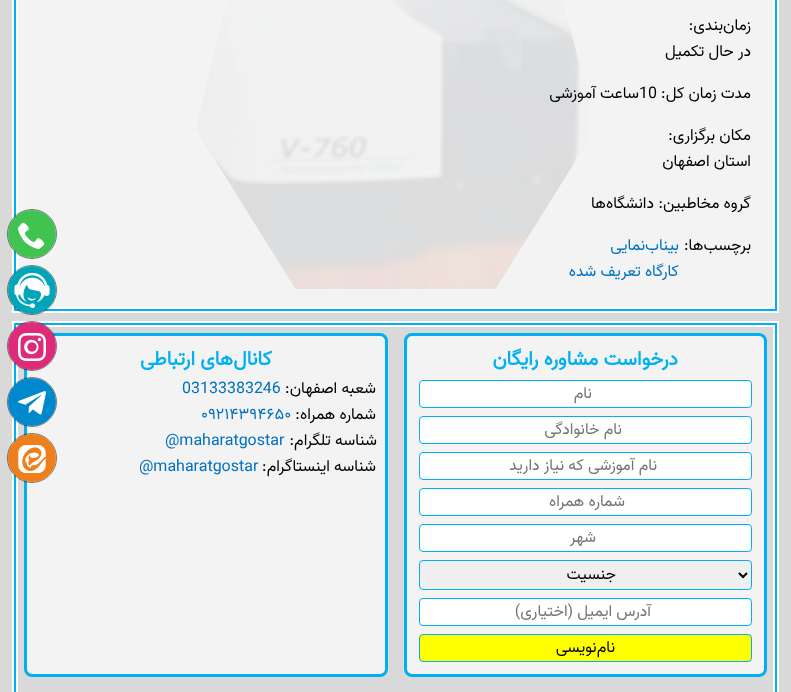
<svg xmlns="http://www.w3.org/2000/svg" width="791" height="692">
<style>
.a{font:16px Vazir;direction:rtl;fill:#000}
.b{font:16px Vazir;fill:#000}
.c{font:16px Vazir;direction:rtl;fill:#0070c0}
.d{font:bold 20px Vazir;direction:rtl;fill:#00b0f0}
.e{font:16px Vazir;direction:rtl;fill:#757575}
.f{font:16px Vazir;fill:#0070c0}
</style>
<rect width="100%" height="100%" fill="#d9d9d9"/>
<path fill="none" stroke="#fff" stroke-width="4" d="M14 -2h763v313H14z"/>
<path fill="none" stroke="#00b0f0" stroke-width="2" d="M15 -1h761v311H15z"/>
<path fill="#f3f3f3" stroke="#fff" stroke-width="2" d="M17 -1h757v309H17z"/>
<path fill="none" stroke="#fff" stroke-width="4" d="M14 323h763v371H14z"/>
<path fill="none" stroke="#00b0f0" stroke-width="2" d="M15 324h761v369H15z"/>
<path fill="none" stroke="#fff" stroke-width="2" d="M17 326h757v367H17z"/>
<rect fill="#f3f3f3" stroke="#00b0f0" stroke-width="3" x="405.5" y="334.5" width="360" height="341" rx="6.5"/>
<rect fill="#fff" stroke="#00b0f0" x="419.5" y="380.5" width="332" height="27" rx="3.5"/>
<rect fill="#fff" stroke="#00b0f0" x="419.5" y="416.5" width="332" height="27" rx="3.5"/>
<rect fill="#fff" stroke="#00b0f0" x="419.5" y="452.5" width="332" height="27" rx="3.5"/>
<rect fill="#fff" stroke="#00b0f0" x="419.5" y="488.5" width="332" height="27" rx="3.5"/>
<rect fill="#fff" stroke="#00b0f0" x="419.5" y="524.5" width="332" height="27" rx="3.5"/>
<rect fill="#efefef" stroke="#00b0f0" x="419.5" y="560.5" width="332" height="29" rx="3.5"/>
<path fill="none" stroke="#000" stroke-width="2" d="M739 573l4 4l4-4"/>
<rect fill="#fff" stroke="#00b0f0" x="419.5" y="598.5" width="332" height="27" rx="3.5"/>
<rect fill="#ff0" stroke="#00b0f0" x="419.5" y="634.5" width="332" height="27" rx="3.5"/>
<rect fill="#f3f3f3" stroke="#00b0f0" stroke-width="3" x="25.5" y="334.5" width="361" height="341" rx="6.5"/>
<circle fill="none" stroke="#00000080" cx="32" cy="234" r="24.5"/>
<circle fill="#40c351" cx="32" cy="234" r="24"/>
<image href="2.png" x="18" y="222" width="27" height="27"/>
<circle fill="none" stroke="#00000080" cx="32" cy="290" r="24.5"/>
<circle fill="#00a5b9" cx="32" cy="290" r="24"/>
<image href="3.png" x="14" y="272" width="36" height="36"/>
<circle fill="none" stroke="#00000080" cx="32" cy="346" r="24.5"/>
<circle fill="#dd2a7b" cx="32" cy="346" r="24"/>
<image href="4.png" x="18" y="333" width="28" height="28"/>
<circle fill="none" stroke="#00000080" cx="32" cy="402" r="24.5"/>
<circle fill="#08c" cx="32" cy="402" r="24"/>
<image href="5.png" x="18" y="391" width="28" height="24"/>
<circle fill="none" stroke="#00000080" cx="32" cy="458" r="24.5"/>
<circle fill="#ef7f1a" cx="32" cy="458" r="24"/>
<image href="6.png" x="18" y="445" width="28" height="28"/>
<text class="a" x="751" y="30">زمان‌بندی:</text>
<text class="a" x="751" y="56">در حال تکمیل</text>
<text class="a" x="751" y="98">مدت زمان کل:</text>
<text class="b" x="639" y="98">10</text>
<text class="a" x="639" y="98">ساعت آموزشی</text>
<text class="a" x="751" y="140">مکان برگزاری:</text>
<text class="a" x="751" y="166">استان اصفهان</text>
<text class="a" x="751" y="208">گروه مخاطبین:</text>
<text class="a" x="654" y="208">دانشگاه‌ها</text>
<text class="a" x="751" y="250">برچسب‌ها:</text>
<text class="c" x="679" y="250">بیناب‌نمایی</text>
<text class="c" x="679" y="276">کارگاه تعریف شده</text>
<image href="1.png" x="196" y="0" width="392" height="289"/>
<text class="d" x="678" y="365">درخواست مشاوره رایگان</text>
<text class="e" x="592" y="398">نام</text>
<text class="e" x="622" y="434">نام خانوادگی</text>
<text class="e" x="657" y="470">نام آموزشی که نیاز دارید</text>
<text class="e" x="625" y="506">شماره همراه</text>
<text class="e" x="596" y="542">شهر</text>
<text class="a" x="616" y="579">جنسیت</text>
<text class="e" x="651" y="616">آدرس ایمیل (اختیاری)</text>
<text class="a" x="615" y="652">نام‌نویسی</text>
<text class="d" x="272" y="365">کانال‌های ارتباطی</text>
<text class="a" x="376" y="393">شعبه اصفهان:</text>
<text class="f" x="182" y="393">03133383246</text>
<text class="a" x="376" y="419">شماره همراه:</text>
<text class="f" x="201" y="419">۰۹۲۱۴۳۹۴۶۵۰</text>
<text class="a" x="377" y="445">شناسه تلگرام:</text>
<text class="f" x="165" y="445">@maharatgostar</text>
<text class="a" x="376" y="471">شناسه اینستاگرام:</text>
<text class="f" x="139" y="471">@maharatgostar</text>
</svg>
